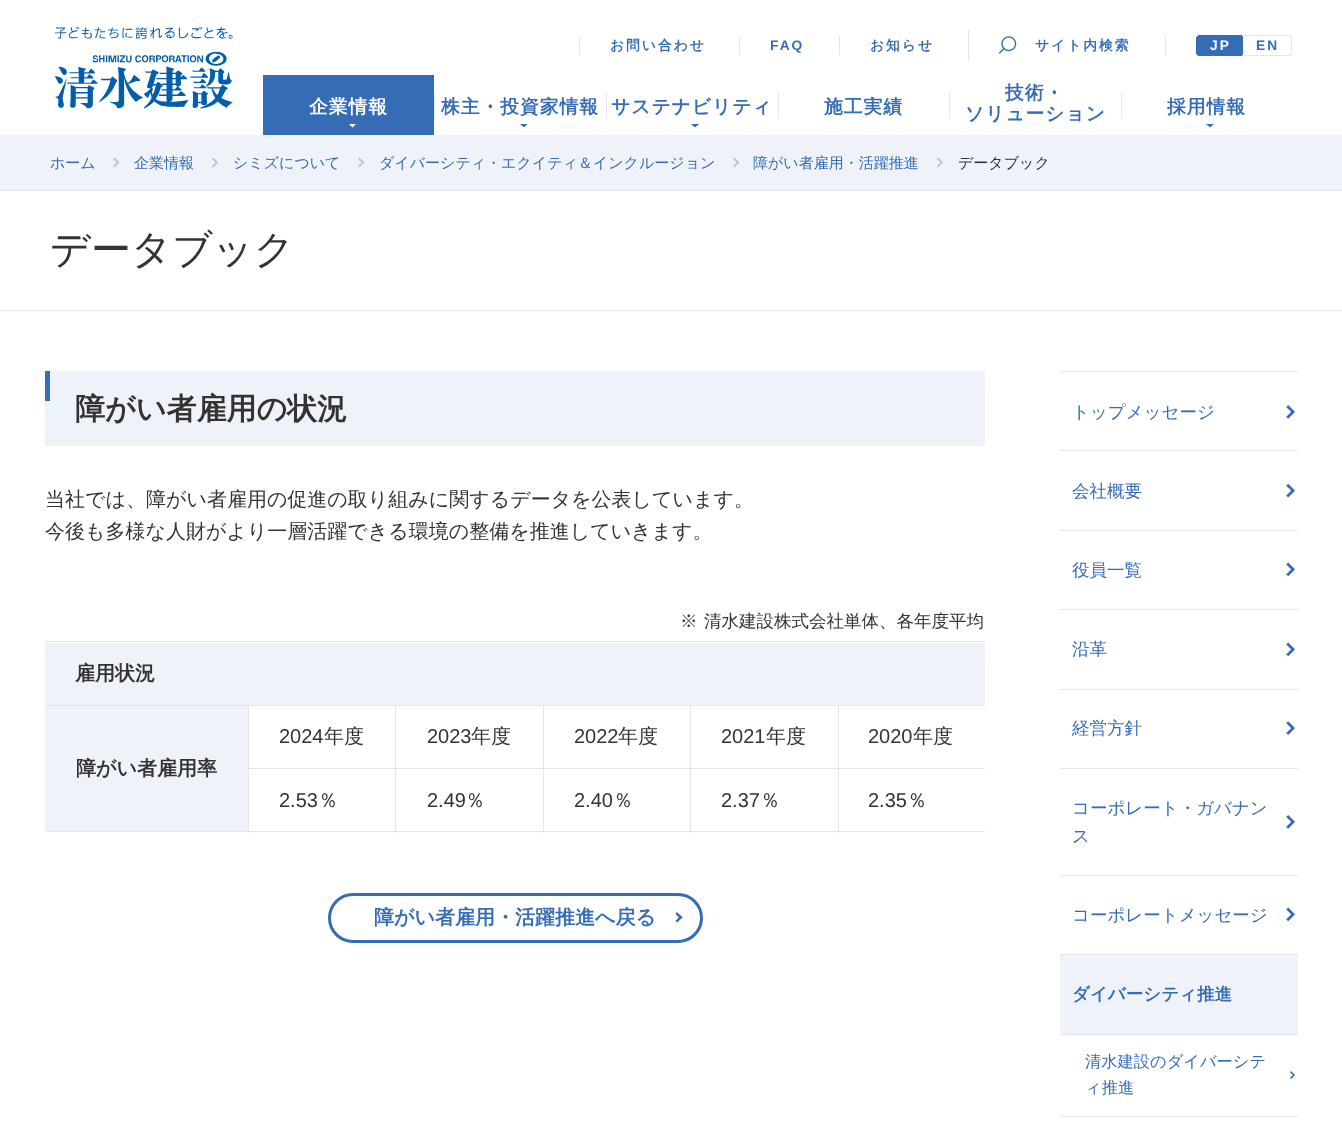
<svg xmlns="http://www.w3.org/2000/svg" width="1342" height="1127">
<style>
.a{font:bold 13.75px WenQuanYi Zen Hei;letter-spacing:2px;fill:#356cb6}
.b{font:bold 13.75px Liberation Sans;letter-spacing:2px;fill:#356cb6}
.c{font:bold 13.75px Liberation Sans;letter-spacing:2px;fill:#fff}
.d{font:bold 18.75px WenQuanYi Zen Hei;letter-spacing:1px;fill:#fff}
.e{font:bold 18.75px WenQuanYi Zen Hei;letter-spacing:1px;fill:#356cb6}
.f{font:500 15px WenQuanYi Zen Hei;fill:#356cb6}
.g{font:500 15px WenQuanYi Zen Hei;fill:#333}
.h{font:500 40px WenQuanYi Zen Hei;fill:#333}
.i{font:bold 30px WenQuanYi Zen Hei;fill:#333}
.j{font:500 20px WenQuanYi Zen Hei;fill:#333}
.k{font:500 17.5px WenQuanYi Zen Hei;fill:#333}
.l{font:bold 20px WenQuanYi Zen Hei;fill:#333}
.m{font:20px Liberation Sans;fill:#333}
.n{font:bold 20px WenQuanYi Zen Hei;fill:#356cb6}
.o{font:500 17.5px WenQuanYi Zen Hei;fill:#356cb6}
.p{font:bold 17.5px WenQuanYi Zen Hei;fill:#356cb6}
.q{font:500 16.25px WenQuanYi Zen Hei;fill:#356cb6}
</style>
<rect width="100%" height="100%" fill="#fff"/>
<image href="1.png" x="54" y="26" width="179" height="83"/>
<path fill="#e2e6e8" d="M579 36h1v19H579z"/>
<path fill="#e2e6e8" d="M739 36h1v19H739z"/>
<path fill="#e2e6e8" d="M839 36h1v19H839z"/>
<path fill="#e2e6e8" d="M968 30h1v31H968z"/>
<image href="2.png" x="998" y="36" width="19" height="18"/>
<path fill="#e2e6e8" d="M1165 35h1v21H1165z"/>
<path fill="#356cb6" d="M1200 35h43v21h-43c-2 0-4-2-4-4v-13c0-2 2-4 4-4z"/>
<path fill="#356cb6" fill-rule="evenodd" d="M1200 35h42v21h-42c-2 0-4-1-4-4v-13c0-2 2-4 4-4zm0 1h42v19h-42c-1 0-2-1-2-3v-13c0-2 1-3 2-3z"/>
<path fill="#e2e6e8" fill-rule="evenodd" d="M1242 35h47c2 0 3 2 3 4v13c0 3-1 4-3 4h-47zm0 1h47c1 0 2 1 2 3v13c0 2-1 3-2 3h-47z"/>
<path fill="#356cb6" d="M263 75h171v60H263z"/>
<path fill="#fff" d="M349 124h7l-3.5 3.5z"/>
<path fill="#e2e6e8" d="M434 93h1v25H434z"/>
<path fill="#356cb6" d="M520 124h7.5l-3.5 3.5z"/>
<path fill="#e2e6e8" d="M606 93h1v25H606z"/>
<path fill="#356cb6" d="M691 124h8l-4 3.5z"/>
<path fill="#e2e6e8" d="M778 93h1v25H778z"/>
<path fill="#e2e6e8" d="M949 93h1v25H949z"/>
<path fill="#e2e6e8" d="M1121 93h1v25H1121z"/>
<path fill="#356cb6" d="M1206 124h8l-4 3.5z"/>
<path fill="#eff3f9" d="M0 135h1342v55H0z"/>
<image href="3.png" x="113" y="157" width="7" height="11"/>
<image href="4.png" x="212" y="157" width="6" height="11"/>
<image href="3.png" x="358" y="157" width="7" height="11"/>
<image href="3.png" x="733" y="157" width="7" height="11"/>
<image href="4.png" x="937" y="157" width="6" height="11"/>
<path fill="#e2e6e8" d="M0 190h1342v1H0z"/>
<path fill="#e2e6e8" d="M0 310h1342v1H0z"/>
<path fill="#eff3f9" d="M45 371h940v75H45z"/>
<path fill="#356cb6" d="M45 371h5v30H45z"/>
<path fill="#eff3f9" d="M45 643h940v62H45z"/>
<path fill="#e2e6e8" d="M45 641h940v1H45z"/>
<path fill="#e2e6e8" d="M838 705h147v1H838z"/>
<path fill="#e2e6e8" d="M838 768h147v1H838z"/>
<path fill="#e2e6e8" d="M838 831h147v1H838z"/>
<path fill="#e2e6e8" d="M838 768h1v65H838z"/>
<path fill="#e2e6e8" d="M690 768h149v1H690z"/>
<path fill="#e2e6e8" d="M838 705h1v64H838z"/>
<path fill="#e2e6e8" d="M690 705h149v1H690z"/>
<path fill="#e2e6e8" d="M690 831h149v1H690z"/>
<path fill="#e2e6e8" d="M690 768h1v65H690z"/>
<path fill="#e2e6e8" d="M543 768h148v1H543z"/>
<path fill="#e2e6e8" d="M690 705h1v64H690z"/>
<path fill="#e2e6e8" d="M543 705h148v1H543z"/>
<path fill="#e2e6e8" d="M543 831h148v1H543z"/>
<path fill="#e2e6e8" d="M543 768h1v65H543z"/>
<path fill="#e2e6e8" d="M395 768h149v1H395z"/>
<path fill="#e2e6e8" d="M543 705h1v64H543z"/>
<path fill="#e2e6e8" d="M395 705h149v1H395z"/>
<path fill="#e2e6e8" d="M395 831h149v1H395z"/>
<path fill="#e2e6e8" d="M395 768h1v65H395z"/>
<path fill="#e2e6e8" d="M248 768h148v1H248z"/>
<path fill="#e2e6e8" d="M395 705h1v64H395z"/>
<path fill="#e2e6e8" d="M45 705h351v1H45z"/>
<path fill="#eff3f9" d="M45 706h203v125H45z"/>
<path fill="#e2e6e8" d="M248 831h148v1H248z"/>
<path fill="#e2e6e8" d="M248 705h1v128H248z"/>
<path fill="#e2e6e8" d="M45 831h204v1H45z"/>
<rect fill="none" stroke="#356cb6" stroke-width="3" x="329.5" y="894.5" width="372" height="47" rx="23.5"/>
<path fill="#356cb6" d="M677 912l5.5 5.5l-2 1.5l-5-5z"/>
<path fill="#356cb6" d="M680.5 915.5l2 2l-5.5 5l-1.5-1.5z"/>
<path fill="#e2e6e8" d="M1060 371h238v1H1060z"/>
<path fill="#e2e6e8" d="M1060 450h238v1H1060z"/>
<image href="5.png" x="1286" y="405" width="9" height="14"/>
<path fill="#e2e6e8" d="M1060 530h238v1H1060z"/>
<image href="6.png" x="1286" y="483" width="9" height="15"/>
<path fill="#e2e6e8" d="M1060 609h238v1H1060z"/>
<image href="7.png" x="1286" y="562" width="9" height="15"/>
<path fill="#e2e6e8" d="M1060 689h238v1H1060z"/>
<image href="7.png" x="1286" y="642" width="9" height="15"/>
<path fill="#e2e6e8" d="M1060 768h238v1H1060z"/>
<image href="8.png" x="1286" y="721" width="9" height="14"/>
<path fill="#e2e6e8" d="M1060 875h238v1H1060z"/>
<image href="5.png" x="1286" y="815" width="9" height="14"/>
<path fill="#e2e6e8" d="M1060 954h238v1H1060z"/>
<image href="7.png" x="1286" y="907" width="9" height="15"/>
<path fill="#eff3f9" d="M1060 955h238v79H1060z"/>
<path fill="#e2e6e8" d="M1060 1034h238v1H1060z"/>
<image href="9.png" x="1290" y="1071" width="5" height="8"/>
<path fill="#e2e6e8" d="M1060 1116h238v1H1060z"/>
<text class="a" x="610" y="50">お問い合わせ</text>
<text class="b" x="770" y="50">FAQ</text>
<text class="a" x="870" y="50">お知らせ</text>
<text class="a" x="1035" y="50">サイト内検索</text>
<text class="c" x="1210" y="50">JP</text>
<text class="b" x="1256" y="50">EN</text>
<text class="d" x="309" y="113">企業情報</text>
<text class="e" x="441" y="113">株主・投資家情報</text>
<text class="e" x="611" y="113">サステナビリティ</text>
<text class="e" x="824" y="113">施工実績</text>
<text class="e" x="1005" y="99">技術・</text>
<text class="e" x="965" y="120">ソリューション</text>
<text class="e" x="1167" y="113">採用情報</text>
<text class="f" x="50" y="168">ホーム</text>
<text class="f" x="134" y="168">企業情報</text>
<text class="f" x="233" y="168">シミズについて</text>
<text class="f" x="379" y="168">ダイバーシティ・エクイティ＆インクルージョン</text>
<text class="f" x="753" y="168">障がい者雇用・活躍推進</text>
<text class="g" x="958" y="168">データブック</text>
<text class="h" x="50" y="263">データブック</text>
<text class="i" x="75" y="419">障がい者雇用の状況</text>
<text class="j" x="45" y="506">当社では、障がい者雇用の促進の取り組みに関するデータを公表しています。</text>
<text class="j" x="45" y="538">今後も多様な人財がより一層活躍できる環境の整備を推進していきます。</text>
<text class="k" x="680" y="627">※</text>
<text class="k" x="704" y="627">清水建設株式会社単体、各年度平均</text>
<text class="l" x="75" y="680">雇用状況</text>
<text class="m" x="279" y="743">2024</text>
<text class="j" x="324" y="743">年度</text>
<text class="m" x="427" y="743">2023</text>
<text class="j" x="471" y="743">年度</text>
<text class="m" x="574" y="743">2022</text>
<text class="j" x="618" y="743">年度</text>
<text class="m" x="721" y="743">2021</text>
<text class="j" x="766" y="743">年度</text>
<text class="m" x="868" y="743">2020</text>
<text class="j" x="913" y="743">年度</text>
<text class="l" x="76" y="775">障がい者雇用率</text>
<text class="m" x="279" y="807">2.53</text>
<text class="j" x="318" y="807">％</text>
<text class="m" x="427" y="807">2.49</text>
<text class="j" x="465" y="807">％</text>
<text class="m" x="574" y="807">2.40</text>
<text class="j" x="613" y="807">％</text>
<text class="m" x="721" y="807">2.37</text>
<text class="j" x="760" y="807">％</text>
<text class="m" x="868" y="807">2.35</text>
<text class="j" x="907" y="807">％</text>
<text class="n" x="374" y="924">障がい者雇用・活躍推進へ戻る</text>
<text class="o" x="1072" y="418">トップメッセージ</text>
<text class="o" x="1072" y="497">会社概要</text>
<text class="o" x="1072" y="576">役員一覧</text>
<text class="o" x="1072" y="655">沿革</text>
<text class="o" x="1072" y="734">経営方針</text>
<text class="o" x="1072" y="814">コーポレート・ガバナン</text>
<text class="o" x="1072" y="842">ス</text>
<text class="o" x="1072" y="921">コーポレートメッセージ</text>
<text class="p" x="1072" y="1000">ダイバーシティ推進</text>
<text class="q" x="1085" y="1067">清水建設のダイバーシテ</text>
<text class="q" x="1085" y="1093">ィ推進</text>
</svg>
